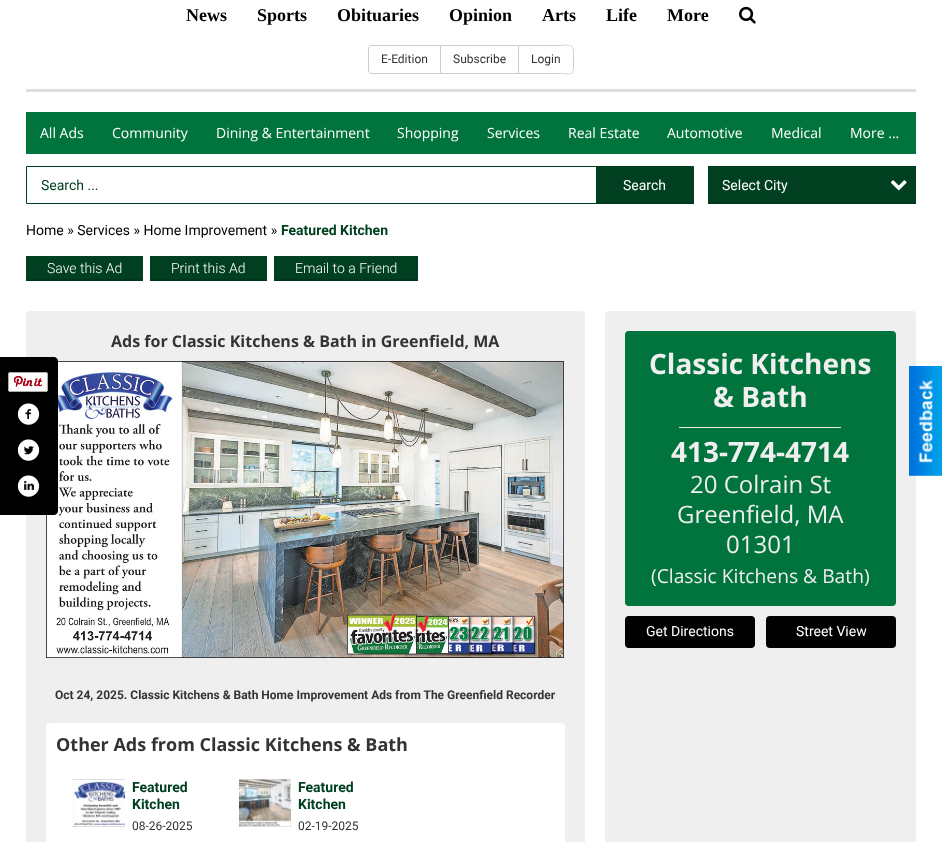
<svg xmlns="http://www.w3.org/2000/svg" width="942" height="842">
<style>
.a{font:bold 18px Liberation Serif;fill:#000}
.b{font:12px Roboto;fill:#333}
.c{font:14px Open Sans;fill:#fff}
.d{font:14px Roboto;fill:#004021}
.e{font:14px Roboto;fill:#fff}
.f{font:14px Roboto;fill:#000}
.g{font:bold 14px Roboto;fill:#004021}
.h{font:300 14px Roboto;fill:#fff}
.i{font:bold 16px Open Sans;fill:#333}
.j{font:bold 12px Roboto;fill:#333}
.k{font:bold 18px Open Sans;fill:#333}
.l{font:bold 28px Open Sans;fill:#efefef}
.m{font:24px Open Sans;fill:#efefef}
.n{font:19.25px Open Sans;fill:#efefef}
</style>
<rect width="100%" height="100%" fill="#fff"/>
<path fill="#dedede" d="M26 89h890v3H26z"/>
<image href="1.png" x="739" y="6" width="17" height="18"/>
<path fill="#ccc" fill-rule="evenodd" d="M372 45h68v29h-68c-2 0-4-2-4-4v-21c0-2 2-4 4-4zm0 1h68v27h-68c-2 0-3-1-3-3v-21c0-2 1-3 3-3z"/>
<path fill="none" stroke="#ccc" d="M440.5 45.5h78v28H440.5z"/>
<path fill="#ccc" fill-rule="evenodd" d="M519 45h34c21 0 21-4 21 15c0 18 0 14-21 14h-34zm0 1h34c21 0 20-5 20 14c0 18 1 13-20 13h-34z"/>
<path fill="#00743c" d="M26 112h890v42H26z"/>
<path fill="none" stroke="#004021" d="M26.5 166.5h667v37H26.5z"/>
<path fill="#004021" d="M596 167h97v35H596z"/>
<path fill="#00361c" d="M596 202h98v2H596z"/>
<path fill="#004021" d="M708 166h208v36H708z"/>
<path fill="#00361c" d="M708 202h208v2H708z"/>
<image href="2.png" x="890" y="180" width="17" height="11"/>
<path fill="#004021" d="M26 256h117v23H26z"/>
<path fill="#00361c" d="M26 279h117v2H26z"/>
<path fill="#004021" d="M150 256h117v23H150z"/>
<path fill="#00361c" d="M150 279h117v2H150z"/>
<path fill="#004021" d="M274 256h144v23H274z"/>
<path fill="#00361c" d="M274 279h144v2H274z"/>
<rect fill="#efefef" x="26" y="311" width="559" height="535" rx="4"/>
<image href="3.png" x="46" y="361" width="518" height="297"/>
<rect fill="#fff" x="46" y="723" width="519" height="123" rx="4"/>
<image href="4.png" x="73" y="779" width="52" height="48"/>
<image href="5.png" x="239" y="779" width="52" height="48"/>
<rect fill="#efefef" x="605" y="311" width="311" height="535" rx="4"/>
<rect fill="#00743c" x="625" y="331" width="271" height="275" rx="4"/>
<path fill="#efefef" d="M679 427h162v1H679z"/>
<rect fill="#010101" x="625" y="616" width="130" height="32" rx="4"/>
<rect fill="#010101" x="766" y="616" width="130" height="32" rx="4"/>
<path fill="#000" d="M0 357h54c2 0 4 2 4 4v150c0 2-2 4-4 4h-54z"/>
<image href="6.png" x="8" y="372" width="40" height="20"/>
<image href="7.png" x="17" y="403" width="23" height="22"/>
<image href="8.png" x="17" y="439" width="23" height="22"/>
<image href="9.png" x="17" y="475" width="23" height="22"/>
<image href="10.png" x="909" y="366" width="33" height="110"/>
<text class="a" x="186" y="21">News</text>
<text class="a" x="257" y="21">Sports</text>
<text class="a" x="337" y="21">Obituaries</text>
<text class="a" x="449" y="21">Opinion</text>
<text class="a" x="542" y="21">Arts</text>
<text class="a" x="606" y="21">Life</text>
<text class="a" x="667" y="21">More</text>
<text class="b" x="381" y="63">E-Edition</text>
<text class="b" x="453" y="63">Subscribe</text>
<text class="b" x="531" y="63">Login</text>
<text class="c" x="40" y="138">All Ads</text>
<text class="c" x="112" y="138">Community</text>
<text class="c" x="216" y="138">Dining &amp; Entertainment</text>
<text class="c" x="397" y="138">Shopping</text>
<text class="c" x="487" y="138">Services</text>
<text class="c" x="568" y="138">Real Estate</text>
<text class="c" x="667" y="138">Automotive</text>
<text class="c" x="771" y="138">Medical</text>
<text class="c" x="850" y="138">More ...</text>
<text class="d" x="41" y="190">Search ...</text>
<text class="e" x="623" y="190">Search</text>
<text class="e" x="722" y="190">Select City</text>
<text class="f" x="26" y="235">Home » Services » Home Improvement »</text>
<text class="g" x="281" y="235">Featured Kitchen</text>
<text class="h" x="47" y="273">Save this Ad</text>
<text class="h" x="171" y="273">Print this Ad</text>
<text class="h" x="295" y="273">Email to a Friend</text>
<text class="i" x="111" y="347">Ads for Classic Kitchens &amp; Bath in Greenfield, MA</text>
<text class="j" x="55" y="699">Oct 24, 2025. Classic Kitchens &amp; Bath Home Improvement Ads from The Greenfield Recorder</text>
<text class="k" x="56" y="751">Other Ads from Classic Kitchens &amp; Bath</text>
<text class="g" x="132" y="792">Featured</text>
<text class="g" x="132" y="809">Kitchen</text>
<text class="b" x="132" y="830">08-26-2025</text>
<text class="g" x="298" y="792">Featured</text>
<text class="g" x="298" y="809">Kitchen</text>
<text class="b" x="298" y="830">02-19-2025</text>
<text class="l" x="649" y="374">Classic Kitchens</text>
<text class="l" x="713" y="407">&amp; Bath</text>
<text class="l" x="671" y="462">413-774-4714</text>
<text class="m" x="690" y="493">20 Colrain St</text>
<text class="m" x="677" y="523">Greenfield, MA</text>
<text class="m" x="726" y="553">01301</text>
<text class="n" x="651" y="583">(Classic Kitchens &amp; Bath)</text>
<text class="e" x="646" y="636">Get Directions</text>
<text class="e" x="796" y="636">Street View</text>
</svg>
